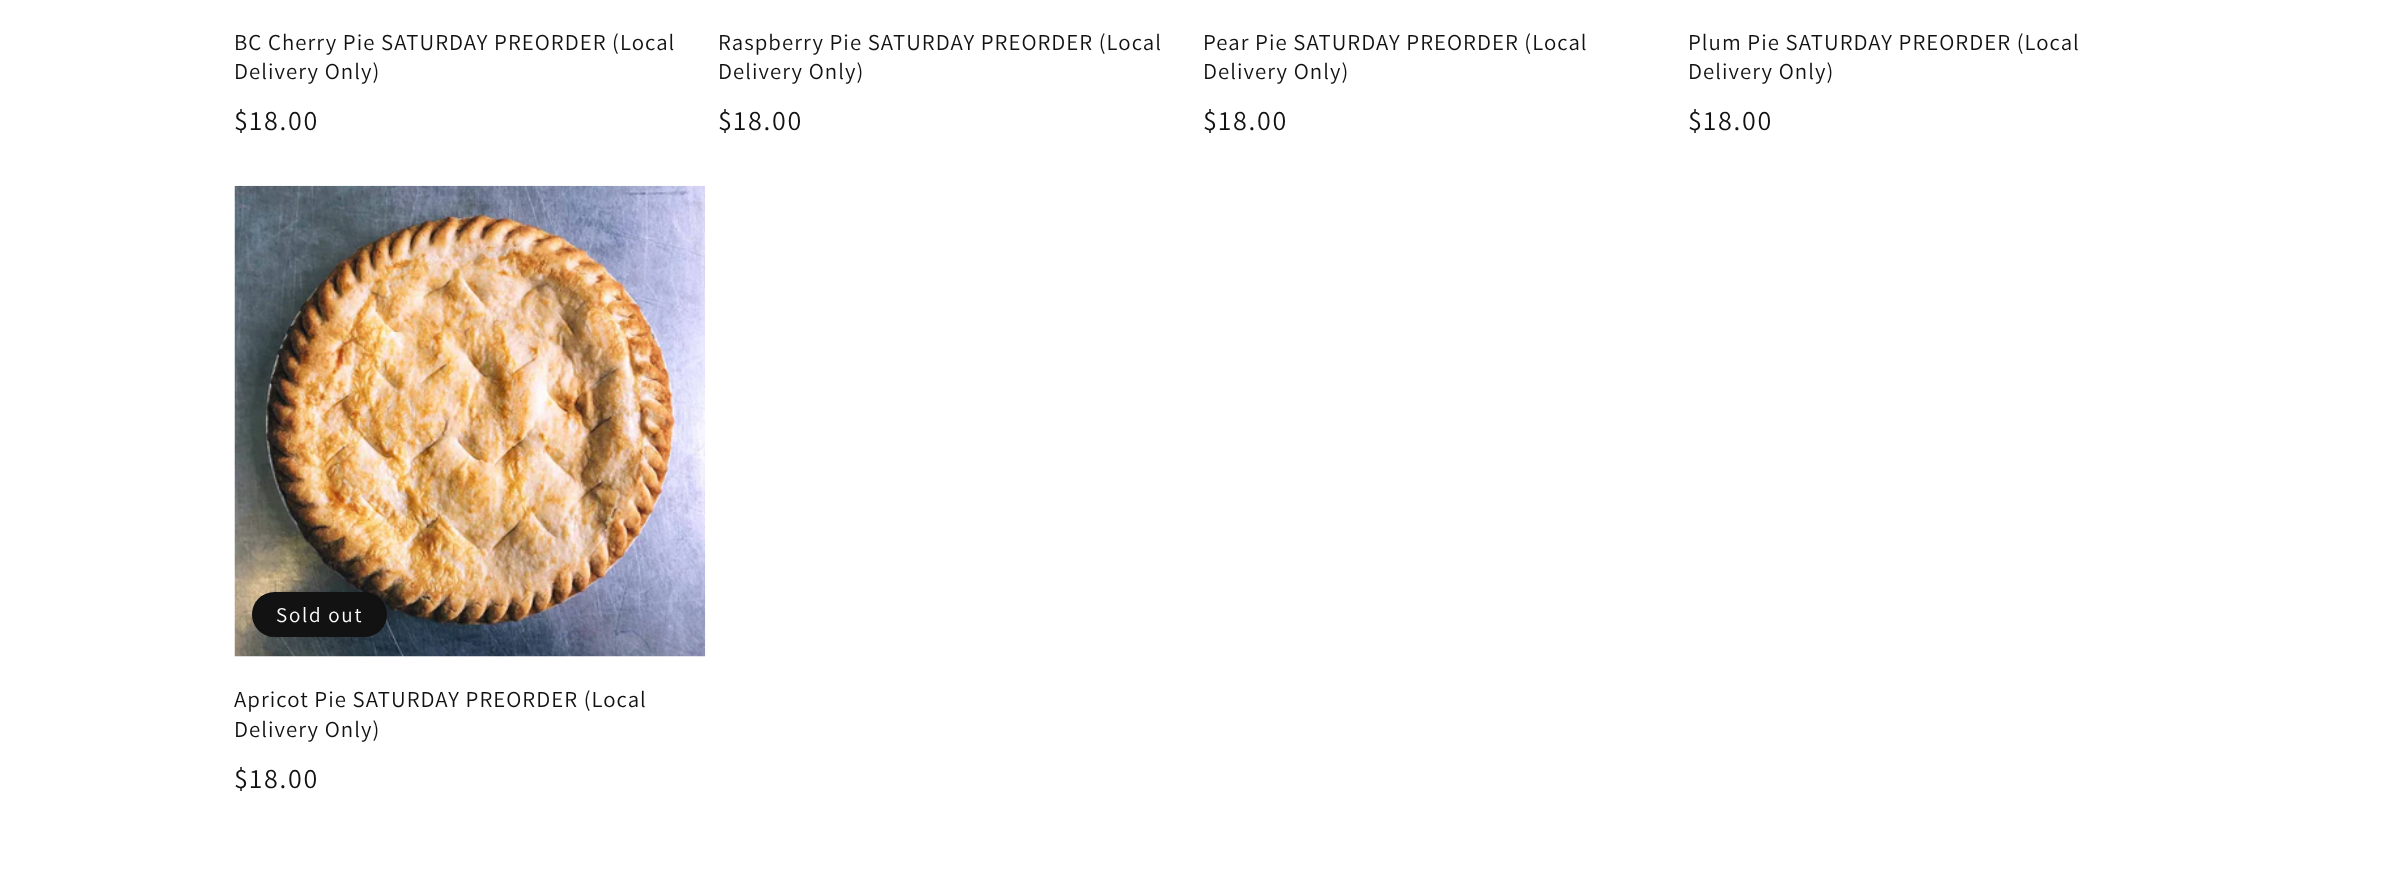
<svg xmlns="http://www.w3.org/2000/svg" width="2391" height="875">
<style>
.a{font:22.75px Assistant;letter-spacing:1.05px;fill:#121212}
.b{font:28px Assistant;letter-spacing:1.75px;fill:#121212}
.c{font:21px Assistant;letter-spacing:1.75px;fill:#fff}
</style>
<rect width="100%" height="100%" fill="#fff"/>
<image href="1.png" x="234" y="185" width="472" height="472"/>
<rect fill="#121212" stroke="#121212" stroke-width="2" x="253" y="593" width="133" height="43" rx="21.5"/>
<text class="a" x="234" y="50">BC Cherry Pie SATURDAY PREORDER (Local</text>
<text class="a" x="234" y="79">Delivery Only)</text>
<text class="b" x="234" y="130">$18.00</text>
<text class="a" x="718" y="50">Raspberry Pie SATURDAY PREORDER (Local</text>
<text class="a" x="718" y="79">Delivery Only)</text>
<text class="b" x="718" y="130">$18.00</text>
<text class="a" x="1203" y="50">Pear Pie SATURDAY PREORDER (Local</text>
<text class="a" x="1203" y="79">Delivery Only)</text>
<text class="b" x="1203" y="130">$18.00</text>
<text class="a" x="1688" y="50">Plum Pie SATURDAY PREORDER (Local</text>
<text class="a" x="1688" y="79">Delivery Only)</text>
<text class="b" x="1688" y="130">$18.00</text>
<text class="c" x="276" y="622">Sold out</text>
<text class="a" x="234" y="707">Apricot Pie SATURDAY PREORDER (Local</text>
<text class="a" x="234" y="737">Delivery Only)</text>
<text class="b" x="234" y="788">$18.00</text>
</svg>
